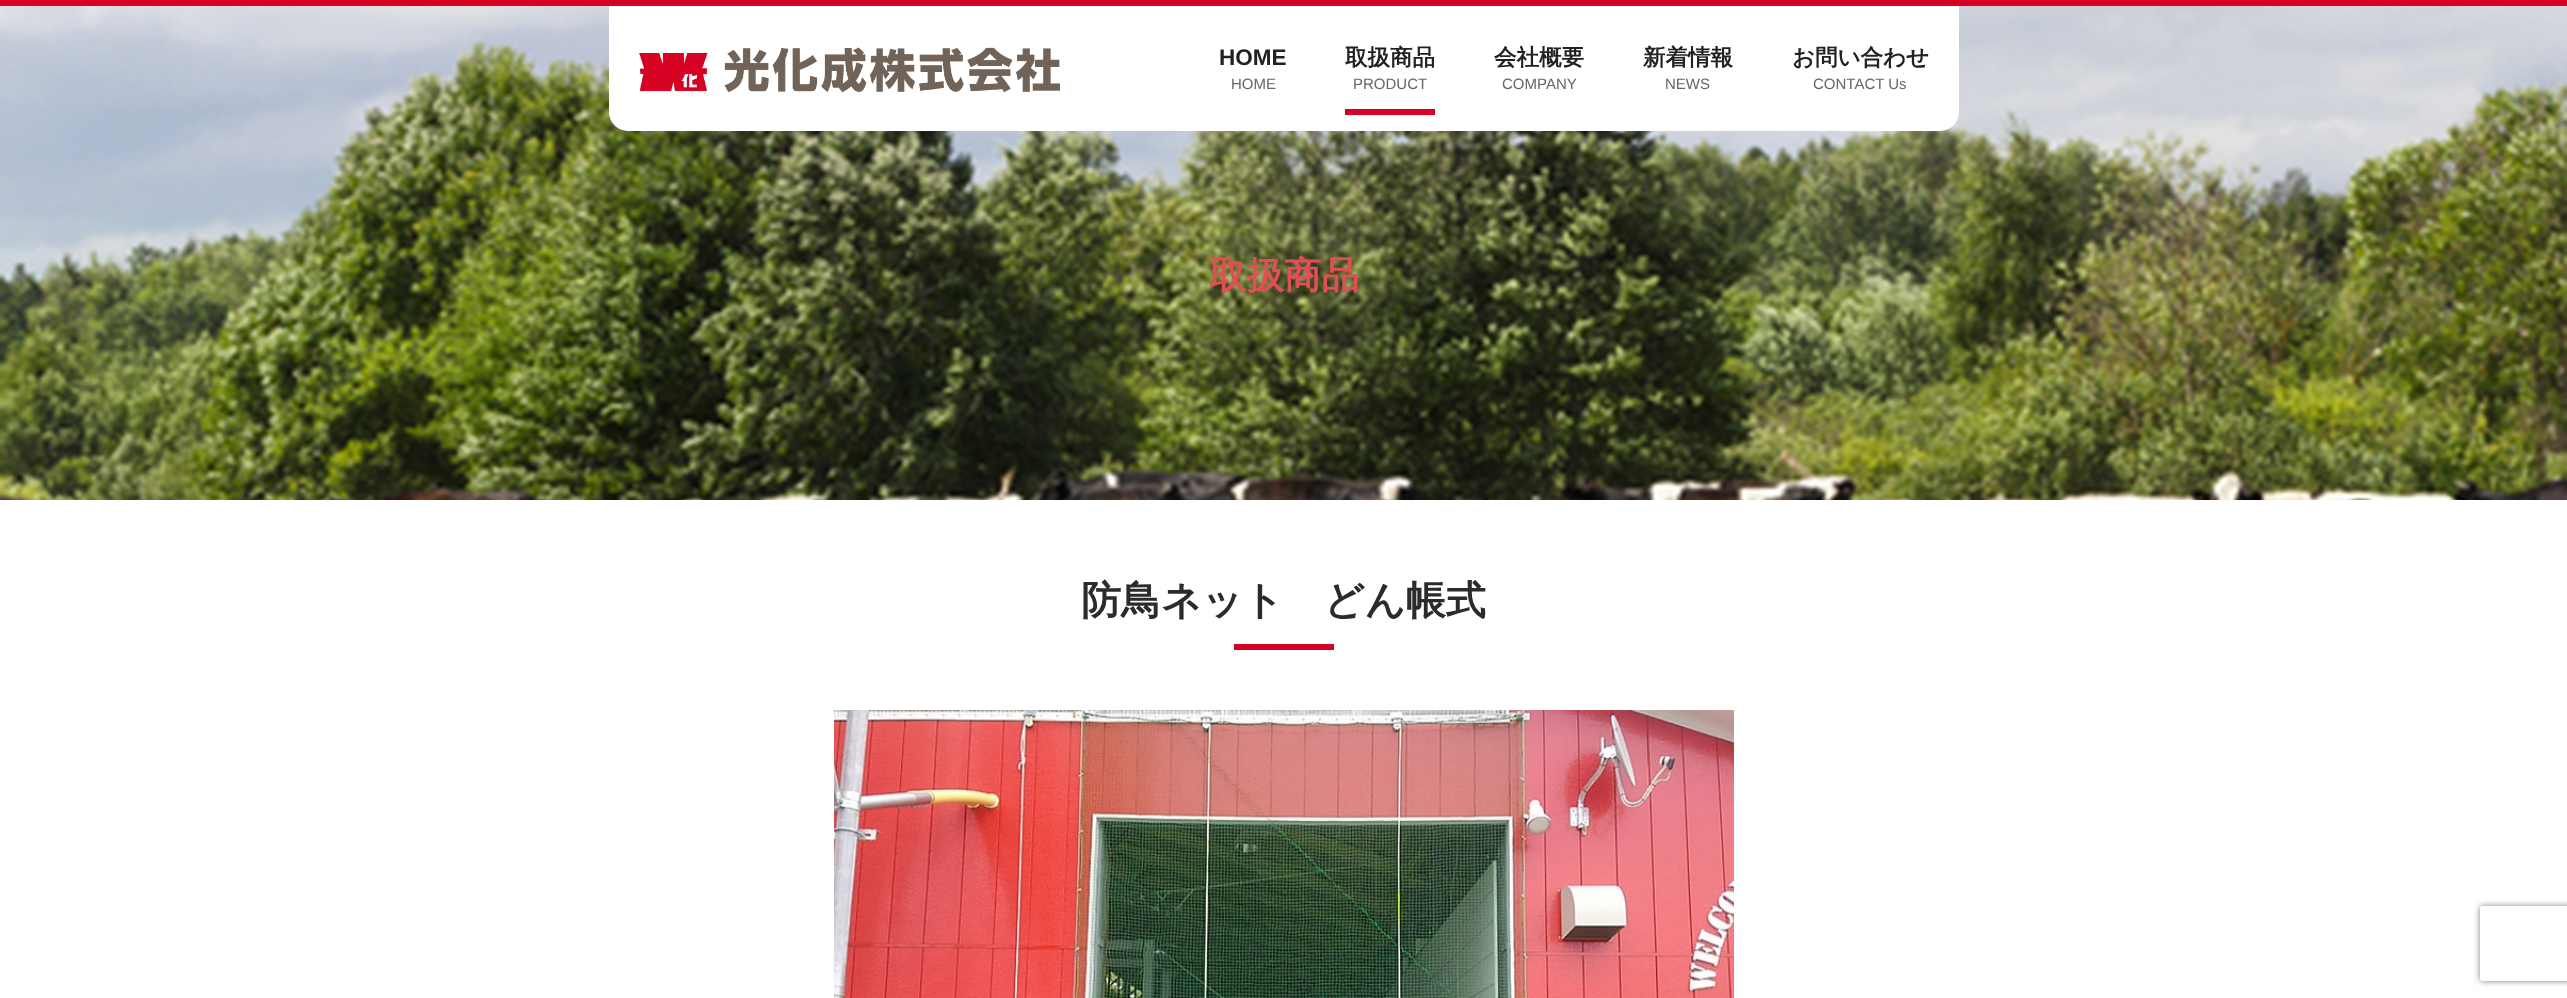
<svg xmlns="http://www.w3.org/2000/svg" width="2567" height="998">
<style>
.a{font:bold 22.5px Liberation Sans;fill:#212121}
.b{font:15px Liberation Sans;fill:#666}
.c{font:bold 22.5px WenQuanYi Zen Hei;fill:#212121}
.d{font:bold 37.5px WenQuanYi Zen Hei;fill:#e04f54}
.e{font:bold 40px WenQuanYi Zen Hei;fill:#2b2b2b}
</style>
<defs>
<clipPath id="clip1"><path d="M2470 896h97v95h-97zm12.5 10h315c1.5 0 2.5 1 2.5 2.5v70c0 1.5-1 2.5-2.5 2.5h-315c-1.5 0-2.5-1-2.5-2.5v-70c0-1.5 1-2.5 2.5-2.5z" clip-rule="evenodd"/></clipPath>
</defs>
<rect width="100%" height="100%" fill="#fff"/>
<path fill="#d50022" d="M0 0h2567v6H0z"/>
<image href="2.png" x="0" y="6" width="2567" height="494"/>
<path fill="#fff" d="M609 6h1350v106c0 10.5-8.5 19-19 19h-1312c-10.5 0-19-8.5-19-19z"/>
<image href="1.png" x="639" y="47" width="421" height="46"/>
<path fill="#d50022" d="M1345 109h90v6H1345z"/>
<path fill="#d40022" d="M1234 644h100v6H1234z"/>
<image href="3.png" x="834" y="710" width="900" height="288"/>
<g clip-path="url(#clip1)">
<rect fill="#808080" filter="blur(3px)" x="2480" y="906" width="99" height="75" rx="2.5"/>
</g>
<text class="a" x="1219" y="65">HOME</text>
<text class="b" x="1231" y="89">HOME</text>
<text class="c" x="1345" y="65">取扱商品</text>
<text class="b" x="1353" y="89">PRODUCT</text>
<text class="c" x="1494" y="65">会社概要</text>
<text class="b" x="1502" y="89">COMPANY</text>
<text class="c" x="1643" y="65">新着情報</text>
<text class="b" x="1665" y="89">NEWS</text>
<text class="c" x="1792" y="65">お問い合わせ</text>
<text class="b" x="1813" y="89">CONTACT Us</text>
<text class="d" x="1209" y="288">取扱商品</text>
<text class="e" x="1081" y="614">防鳥ネット　どん帳式</text>
</svg>
